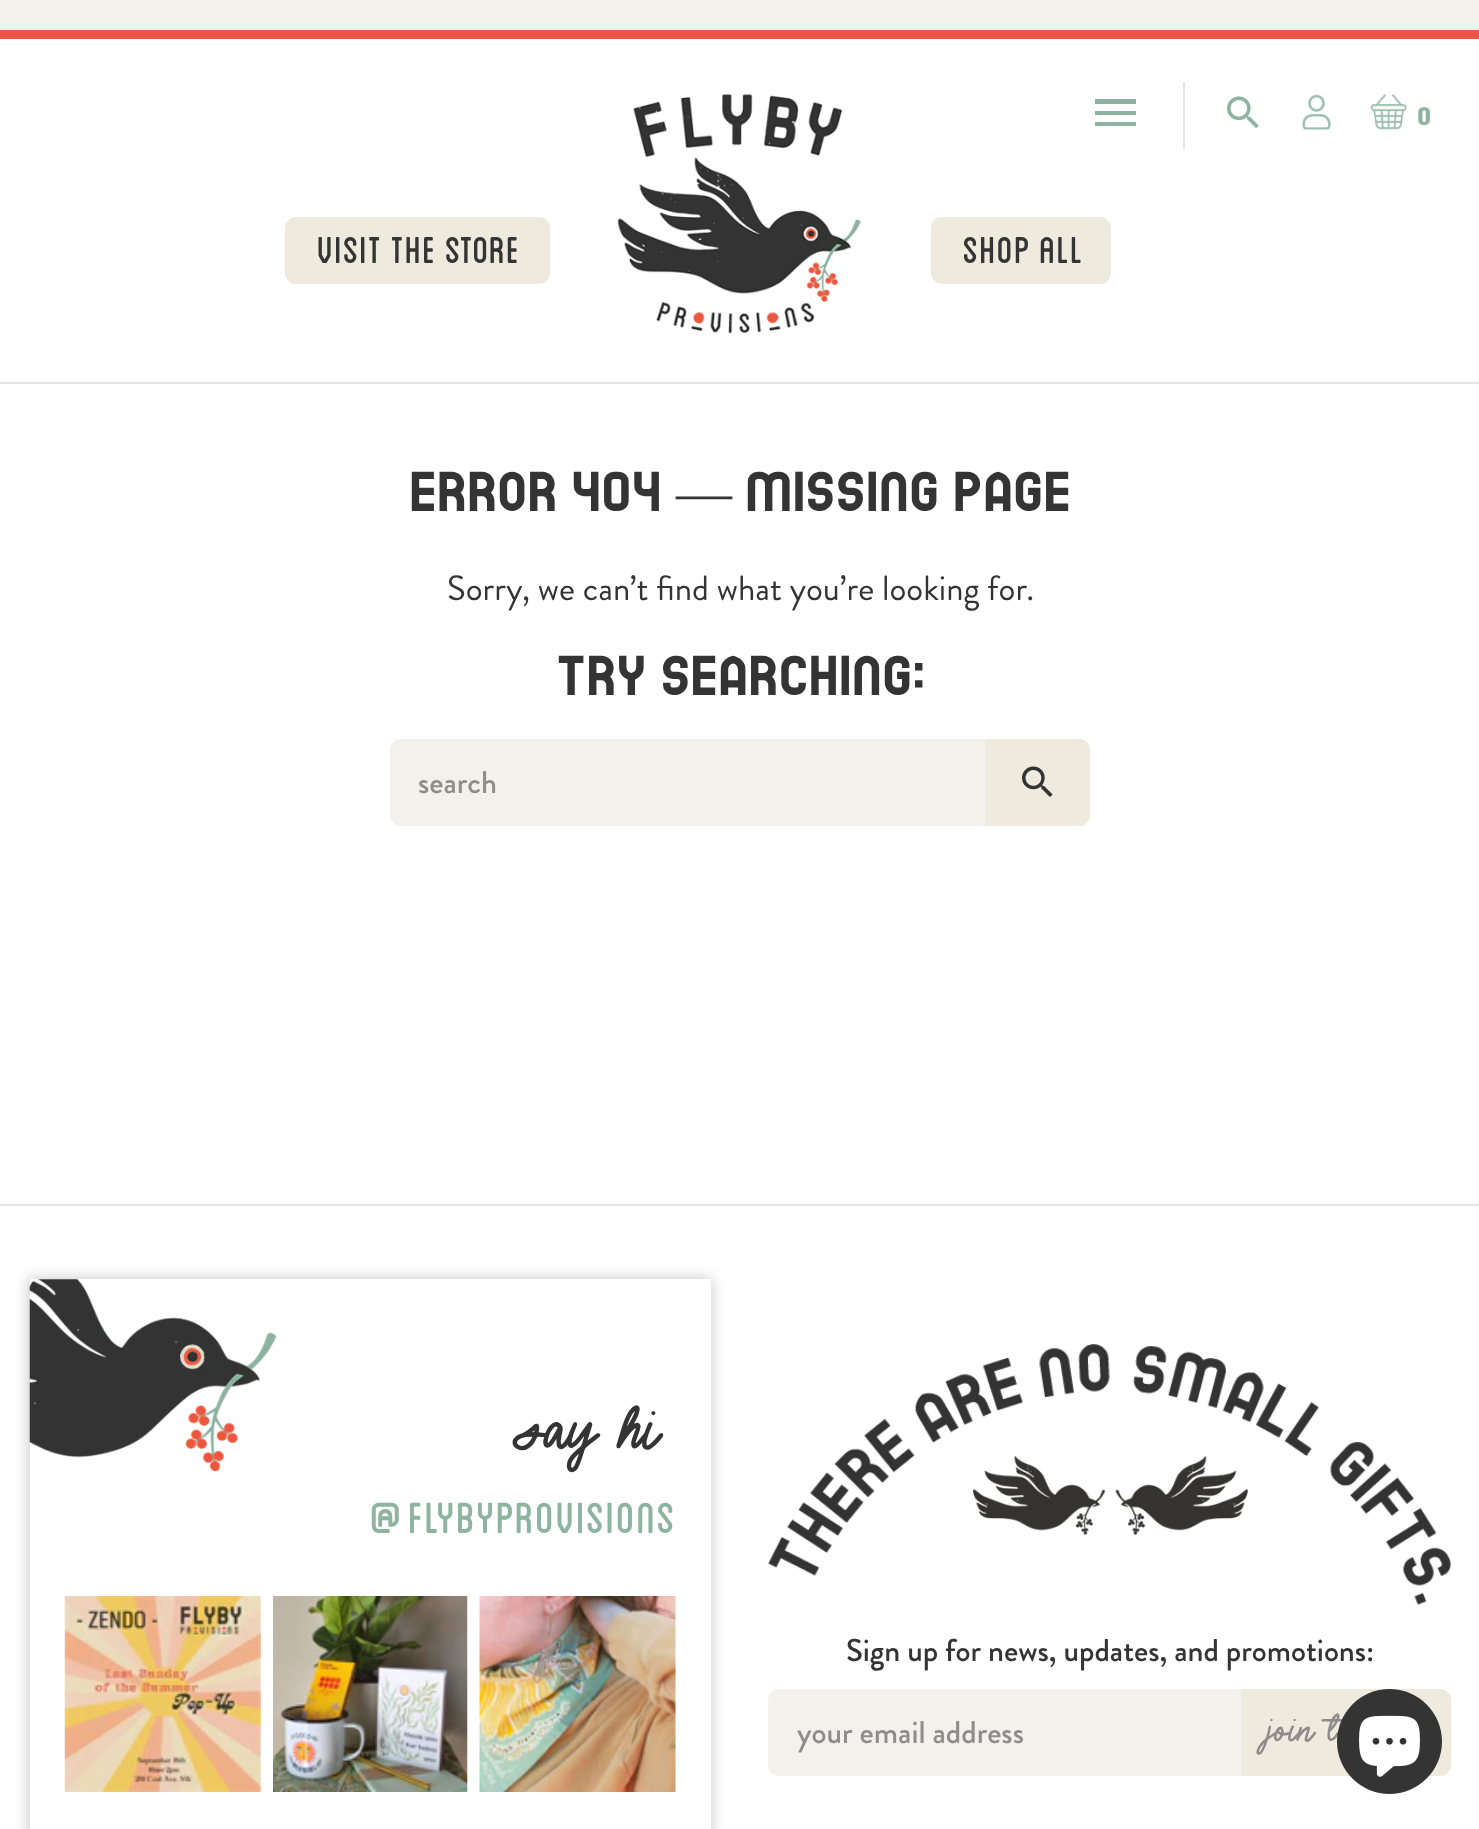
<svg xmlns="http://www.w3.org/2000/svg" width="1479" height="1829">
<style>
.a{font:26px Concert One;fill:#8eb4a1}
.b{font:52.5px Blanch;letter-spacing:1px;fill:#343434}
.c{font:56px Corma;fill:#343434}
.d{font:56px Liberation Serif;fill:#343434}
.e{font:35px Brandon Grotesque;fill:#343434}
.f{font:500 31.5px Brandon Grotesque;fill:#918c8c}
.g{font:65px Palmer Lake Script;fill:#343434}
.h{font:61.25px Blanch;letter-spacing:1.25px;fill:#8eb4a1}
.i{font:500 31.5px Brandon Grotesque;fill:#343434}
.j{font:38px Palmer Lake Script;fill:#918c8c}
</style>
<defs>
<clipPath id="clip1"><path d="M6 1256h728v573h-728zm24 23h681v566h-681z" clip-rule="evenodd"/></clipPath>
</defs>
<rect width="100%" height="100%" fill="#f3f1ec"/>
<path fill="#fff" d="M0 39h1479v1790H0z"/>
<path fill="#ea5645" d="M0 30h1479v9H0z"/>
<path fill="#8eb4a1" d="M1095 99h41v5h-41zm0 16v-4h41v4zm0 11v-4h41v4z"/>
<path fill="#e7e6e5" d="M1183 82h2v67H1183z"/>
<image href="1.png" x="1227" y="96" width="32" height="33"/>
<image href="2.png" x="1302" y="94" width="29" height="36"/>
<image href="3.png" x="1370" y="94" width="37" height="36"/>
<rect fill="#efeade" x="285" y="217" width="265" height="67" rx="11"/>
<image href="4.png" x="617" y="94" width="244" height="240"/>
<rect fill="#efeade" x="931" y="217" width="180" height="67" rx="11"/>
<path fill="#e3e3e3" d="M0 382h1479v2H0z"/>
<rect fill="#f3f1ec" x="390" y="739" width="700" height="87" rx="11"/>
<path fill="#efeade" d="M985 739h94c6 0 11 5 11 11v65c0 6-5 11-11 11h-94z"/>
<image href="5.png" x="1022" y="766" width="31" height="31"/>
<path fill="#e3e3e3" d="M0 1204h1479v2H0z"/>
<g clip-path="url(#clip1)">
<path fill="#00000033" filter="blur(7px)" d="M28 1278h684v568H28z"/>
</g>
<image href="6.png" x="29" y="1279" width="248" height="193"/>
<image href="7.png" x="64" y="1596" width="197" height="196"/>
<image href="8.png" x="273" y="1596" width="195" height="196"/>
<image href="9.png" x="479" y="1596" width="197" height="196"/>
<image href="10.png" x="768" y="1344" width="683" height="261"/>
<image href="11.png" x="973" y="1456" width="275" height="79"/>
<rect fill="#f3f1ec" x="768" y="1689" width="683" height="87" rx="11"/>
<path fill="#efeade" d="M1241 1689h199c6 0 11 5 11 11v65c0 6-5 11-11 11h-199z"/>
<text class="a" x="1417" y="125">0</text>
<text class="b" x="317" y="263">Visit the store</text>
<text class="b" x="963" y="263">Shop all</text>
<text class="c" x="409" y="511">ERROR 404</text>
<text class="d" x="676" y="511">—</text>
<text class="c" x="745" y="511">MISSING PAGE</text>
<text class="e" x="447" y="600">Sorry, we can’t find what you’re looking for.</text>
<text class="c" x="556" y="695">TRY SEARCHING:</text>
<text class="f" x="418" y="793">search</text>
<text class="g" x="521" y="1449">SAY HI</text>
<text class="h" x="370" y="1533">@flybyprovisions</text>
<text class="i" x="846" y="1661">Sign up for news, updates, and promotions:</text>
<text class="f" x="797" y="1743">your email address</text>
<text class="j" x="1267" y="1741">JOIN T</text>
<circle fill="#343434" cx="1389.5" cy="1741.5" r="52.5"/>
<image href="12.png" x="1359" y="1715" width="61" height="62"/>
</svg>
